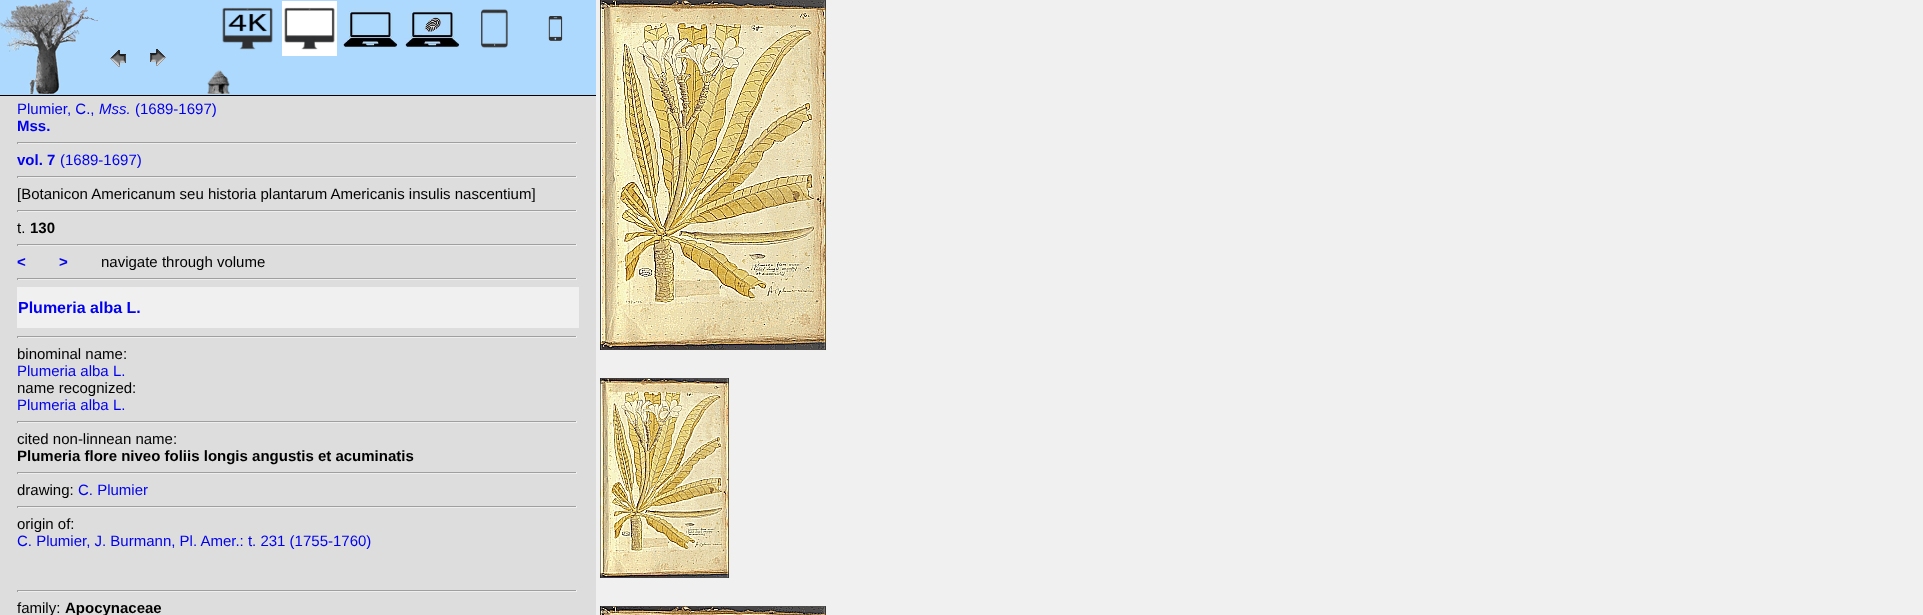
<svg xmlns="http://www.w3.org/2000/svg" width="1923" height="615">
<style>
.a{font:15px Liberation Sans;fill:#00e}
.b{font:italic 15px Liberation Sans;fill:#00e}
.c{font:bold 15px Liberation Sans;fill:#00e}
.d{font:15px Liberation Sans;fill:#000}
.e{font:bold 15px Liberation Sans;fill:#000}
.f{font:bold 16px Liberation Sans;fill:#00e}
</style>
<rect width="100%" height="100%" fill="#f0f0f0"/>
<path fill="#ddd" d="M0 96h596v519H0z"/>
<path fill="#add9fe" d="M0 0h596v95H0z"/>
<path fill="#000" d="M0 95h596v1H0z"/>
<image href="1.png" x="0" y="0" width="100" height="94"/>
<image href="2.png" x="110" y="50" width="16" height="17"/>
<image href="3.png" x="150" y="49" width="16" height="17"/>
<image href="4.png" x="222" y="7" width="51" height="43"/>
<image href="5.png" x="282" y="1" width="55" height="55"/>
<image href="6.png" x="343" y="9" width="55" height="38"/>
<image href="7.png" x="405" y="9" width="55" height="38"/>
<image href="8.png" x="481" y="9" width="27" height="39"/>
<image href="9.png" x="548" y="15" width="15" height="26"/>
<image href="10.png" x="207" y="70" width="23" height="24"/>
<path fill="#9f9f9f" d="M17 142h560v1H17z"/>
<path fill="#eee" d="M576 142h1v2H576z"/>
<path fill="#eee" d="M17 143h560v1H17z"/>
<path fill="#9f9f9f" d="M17 142h1v2H17z"/>
<path fill="#9f9f9f" d="M17 176h560v1H17z"/>
<path fill="#eee" d="M576 176h1v2H576z"/>
<path fill="#eee" d="M17 177h560v1H17z"/>
<path fill="#9f9f9f" d="M17 176h1v2H17z"/>
<path fill="#9f9f9f" d="M17 210h560v1H17z"/>
<path fill="#eee" d="M576 210h1v2H576z"/>
<path fill="#eee" d="M17 211h560v1H17z"/>
<path fill="#9f9f9f" d="M17 210h1v2H17z"/>
<path fill="#9f9f9f" d="M17 244h560v1H17z"/>
<path fill="#eee" d="M576 244h1v2H576z"/>
<path fill="#eee" d="M17 245h560v1H17z"/>
<path fill="#9f9f9f" d="M17 244h1v2H17z"/>
<path fill="#9f9f9f" d="M17 278h560v1H17z"/>
<path fill="#eee" d="M576 278h1v2H576z"/>
<path fill="#eee" d="M17 279h560v1H17z"/>
<path fill="#9f9f9f" d="M17 278h1v2H17z"/>
<path fill="#f0f0f0" d="M17 287h562v41H17z"/>
<path fill="#9f9f9f" d="M17 336h560v1H17z"/>
<path fill="#eee" d="M576 336h1v2H576z"/>
<path fill="#eee" d="M17 337h560v1H17z"/>
<path fill="#9f9f9f" d="M17 336h1v2H17z"/>
<path fill="#9f9f9f" d="M17 421h560v1H17z"/>
<path fill="#eee" d="M576 421h1v2H576z"/>
<path fill="#eee" d="M17 422h560v1H17z"/>
<path fill="#9f9f9f" d="M17 421h1v2H17z"/>
<path fill="#9f9f9f" d="M17 472h560v1H17z"/>
<path fill="#eee" d="M576 472h1v2H576z"/>
<path fill="#eee" d="M17 473h560v1H17z"/>
<path fill="#9f9f9f" d="M17 472h1v2H17z"/>
<path fill="#9f9f9f" d="M17 506h560v1H17z"/>
<path fill="#eee" d="M576 506h1v2H576z"/>
<path fill="#eee" d="M17 507h560v1H17z"/>
<path fill="#9f9f9f" d="M17 506h1v2H17z"/>
<path fill="#9f9f9f" d="M17 590h560v1H17z"/>
<path fill="#eee" d="M576 590h1v2H576z"/>
<path fill="#eee" d="M17 591h560v1H17z"/>
<path fill="#9f9f9f" d="M17 590h1v2H17z"/>
<image href="11.png" x="600" y="0" width="226" height="350"/>
<image href="12.png" x="600" y="378" width="129" height="200"/>
<image href="13.png" x="600" y="606" width="226" height="9"/>
<text class="a" x="17" y="114">Plumier, C.,</text>
<text class="b" x="99" y="114">Mss.</text>
<text class="a" x="135" y="114">(1689-1697)</text>
<text class="c" x="17" y="131">Mss.</text>
<text class="c" x="17" y="165">vol. 7</text>
<text class="a" x="60" y="165">(1689-1697)</text>
<text class="d" x="17" y="199">[Botanicon Americanum seu historia plantarum Americanis insulis nascentium]</text>
<text class="d" x="17" y="233">t.</text>
<text class="e" x="30" y="233">130</text>
<text class="c" x="17" y="267">&lt;</text>
<text class="c" x="59" y="267">&gt;</text>
<text class="d" x="101" y="267">navigate through volume</text>
<text class="f" x="18" y="313">Plumeria alba L.</text>
<text class="d" x="17" y="359">binominal name:</text>
<text class="a" x="17" y="376">Plumeria alba L.</text>
<text class="d" x="17" y="393">name recognized:</text>
<text class="a" x="17" y="410">Plumeria alba L.</text>
<text class="d" x="17" y="444">cited non-linnean name:</text>
<text class="e" x="17" y="461">Plumeria flore niveo foliis longis angustis et acuminatis</text>
<text class="d" x="17" y="495">drawing:</text>
<text class="a" x="78" y="495">C. Plumier</text>
<text class="d" x="17" y="529">origin of:</text>
<text class="a" x="17" y="546">C. Plumier, J. Burmann, Pl. Amer.: t. 231 (1755-1760)</text>
<text class="d" x="17" y="613">family:</text>
<text class="e" x="65" y="613">Apocynaceae</text>
</svg>
